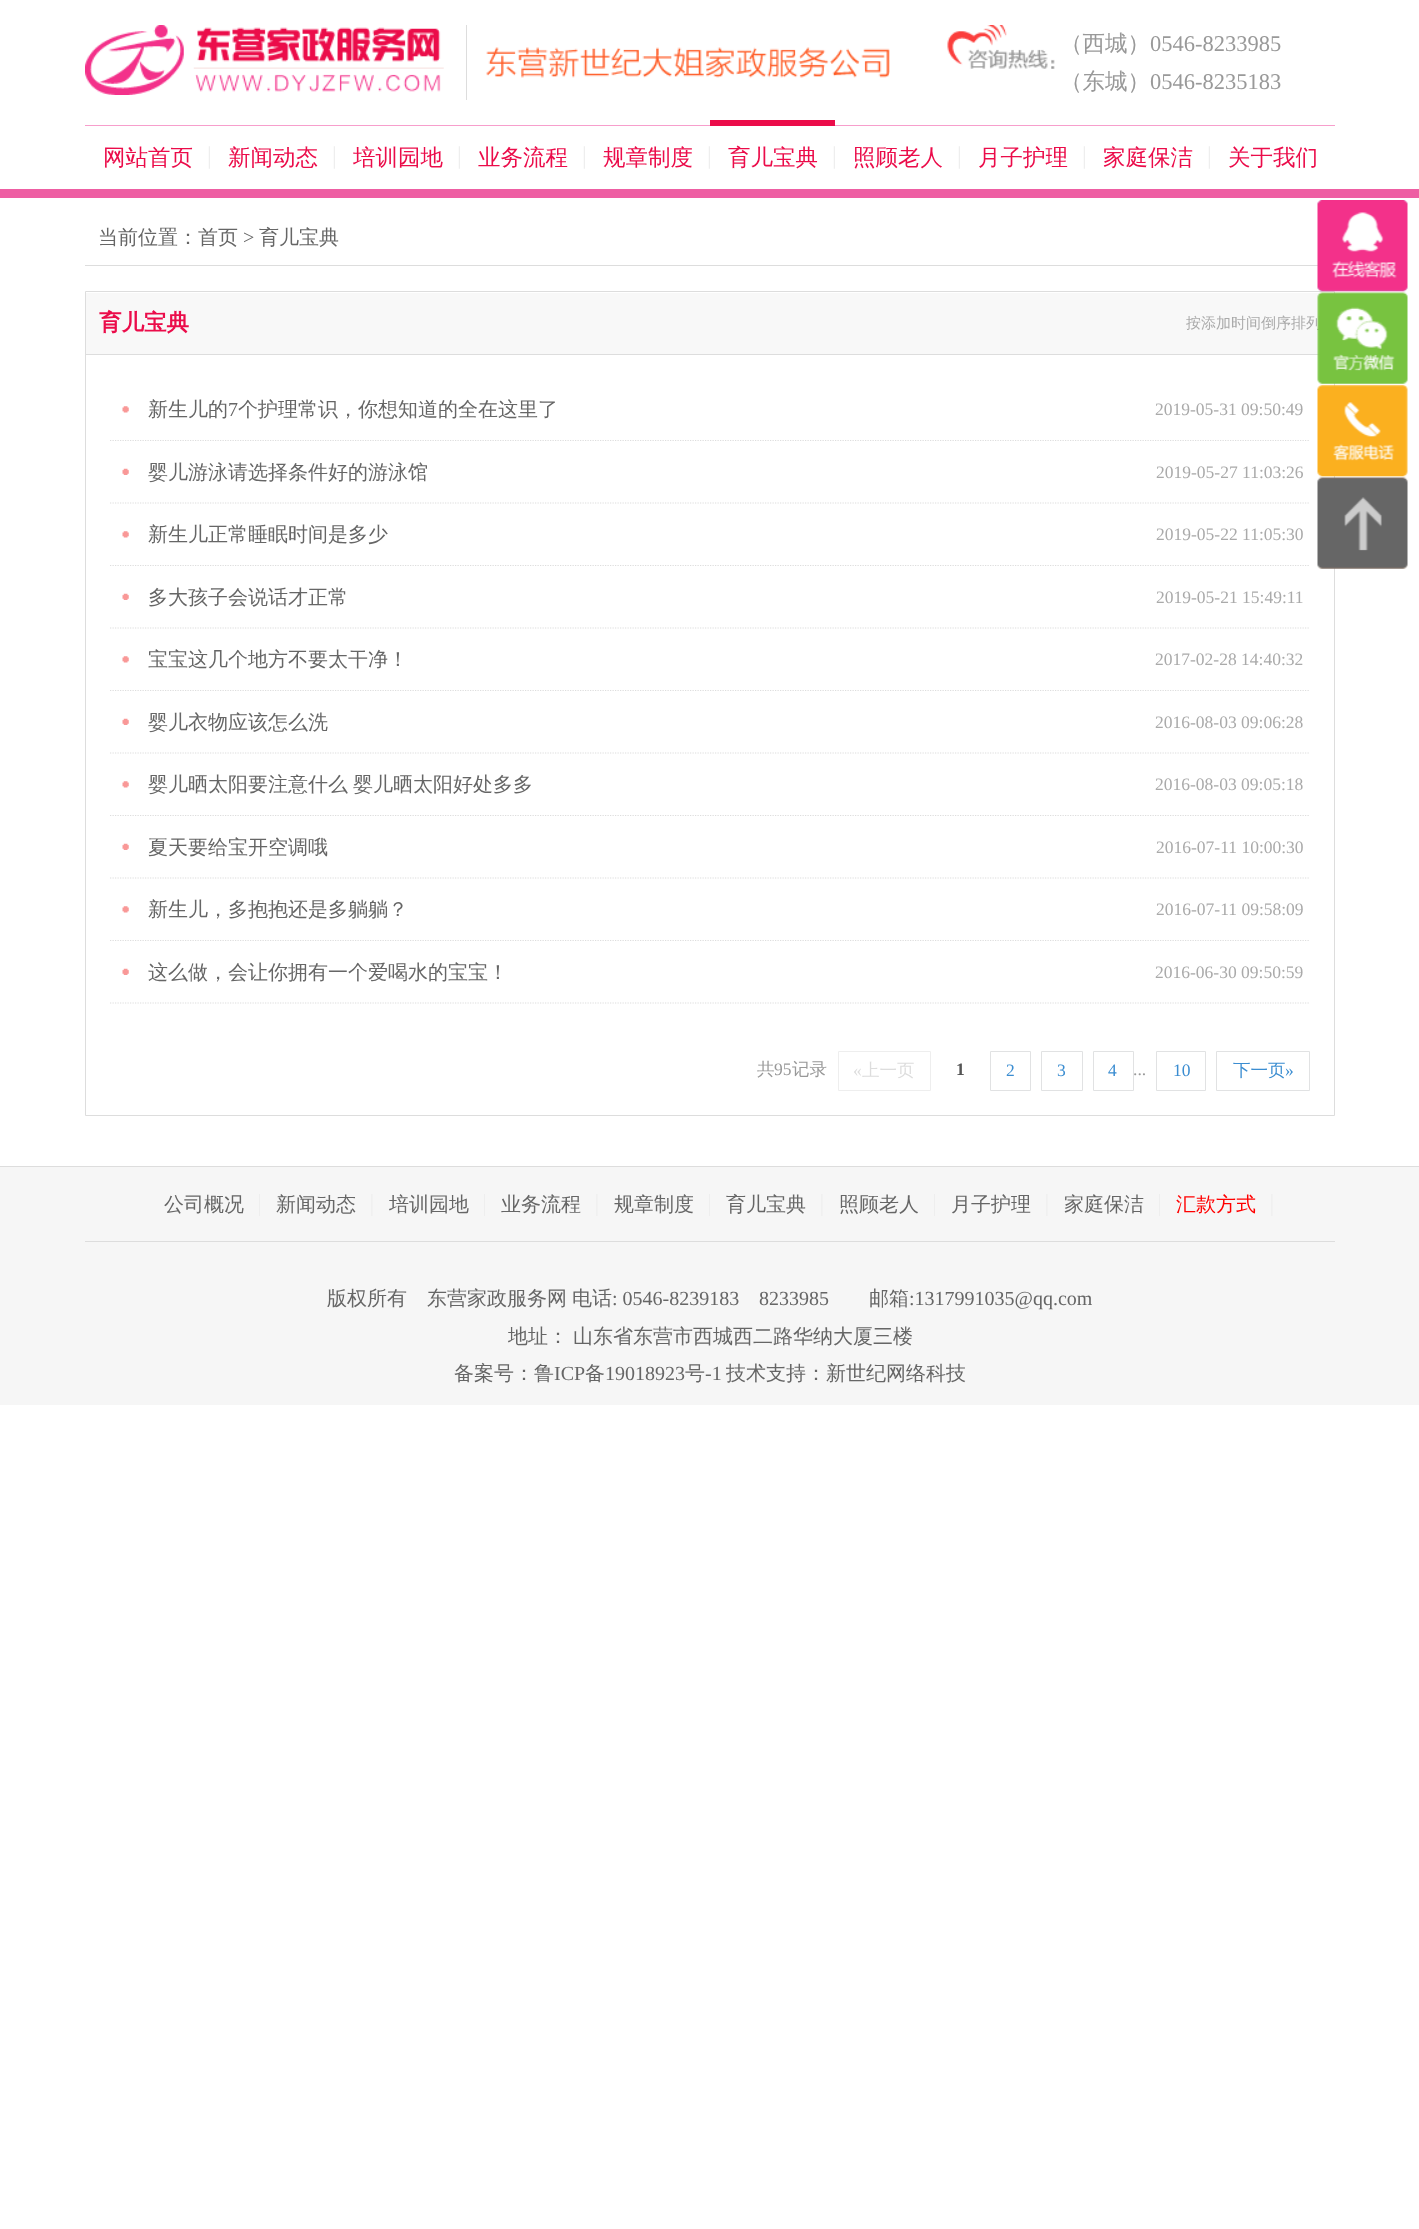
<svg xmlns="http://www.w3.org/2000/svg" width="1419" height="2229">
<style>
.a{font:500 22.5px WenQuanYi Zen Hei;fill:#999}
.b{font:22.5px Liberation Serif;fill:#999}
.c{font:500 22.5px WenQuanYi Zen Hei;fill:#eb0c4a}
.d{font:500 20px WenQuanYi Zen Hei;fill:#666}
.e{font:20px Liberation Serif;fill:#666}
.f{font:bold 22.5px WenQuanYi Zen Hei;fill:#eb0c4a}
.g{font:500 15px WenQuanYi Zen Hei;fill:#aaa}
.h{font:17.5px Liberation Serif;fill:#aaa}
.i{font:500 17.5px WenQuanYi Zen Hei;fill:#999}
.j{font:17.5px Liberation Serif;fill:#999}
.k{font:17.5px Liberation Serif;fill:#ddd}
.l{font:500 17.5px WenQuanYi Zen Hei;fill:#ddd}
.m{font:bold 17.5px Liberation Serif;fill:#555}
.n{font:17.5px Liberation Serif;fill:#3b8dd1}
.o{font:500 17.5px WenQuanYi Zen Hei;fill:#3b8dd1}
.p{font:500 20px WenQuanYi Zen Hei;fill:#f00}
</style>
<rect width="100%" height="100%" fill="#fff"/>
<path fill="#ddd" d="M466 25h1v75H466z"/>
<image href="1.png" x="85" y="25" width="359" height="70"/>
<image href="2.png" x="486" y="47" width="404" height="31"/>
<image href="3.png" x="947" y="25" width="108" height="44"/>
<path fill="#f79ecc" d="M85 125h1250v1H85z"/>
<path fill="#eb0c4a" d="M710 120h125v6H710z"/>
<image href="4.png" x="208" y="146" width="2" height="23"/>
<image href="4.png" x="333" y="146" width="2" height="23"/>
<image href="4.png" x="458" y="146" width="2" height="23"/>
<image href="4.png" x="583" y="146" width="2" height="23"/>
<image href="4.png" x="708" y="146" width="2" height="23"/>
<image href="4.png" x="833" y="146" width="2" height="23"/>
<image href="4.png" x="958" y="146" width="2" height="23"/>
<image href="4.png" x="1083" y="146" width="2" height="23"/>
<image href="4.png" x="1208" y="146" width="2" height="23"/>
<path fill="#ee5ea3" d="M0 189h1419v9H0z"/>
<path fill="#ddd" d="M85 265h1233v1H85z"/>
<path fill="none" stroke="#ddd" d="M85.5 291.5h1249v824H85.5z"/>
<path fill="#f8f8f8" d="M86 293h1248v61H86z"/>
<path fill="#ddd" d="M86 354h1234v1H86z"/>
<image href="5.png" x="122" y="406" width="7" height="7"/>
<path fill="none" stroke="#ddd" stroke-width="1.2" stroke-dasharray="1.25 1.25" d="M110 440.5h1200"/>
<image href="6.png" x="122" y="468" width="7" height="7"/>
<path fill="none" stroke="#ddd" stroke-width="1.2" stroke-dasharray="1.25 1.25" d="M110 503h1200"/>
<image href="5.png" x="122" y="531" width="7" height="7"/>
<path fill="none" stroke="#ddd" stroke-width="1.2" stroke-dasharray="1.25 1.25" d="M110 565.5h1200"/>
<image href="6.png" x="122" y="593" width="7" height="7"/>
<path fill="none" stroke="#ddd" stroke-width="1.2" stroke-dasharray="1.25 1.25" d="M110 628h1200"/>
<image href="5.png" x="122" y="656" width="7" height="7"/>
<path fill="none" stroke="#ddd" stroke-width="1.2" stroke-dasharray="1.25 1.25" d="M110 690.5h1200"/>
<image href="6.png" x="122" y="718" width="7" height="7"/>
<path fill="none" stroke="#ddd" stroke-width="1.2" stroke-dasharray="1.25 1.25" d="M110 753h1200"/>
<image href="7.png" x="122" y="781" width="7" height="7"/>
<path fill="none" stroke="#ddd" stroke-width="1.2" stroke-dasharray="1.25 1.25" d="M110 815.5h1200"/>
<image href="6.png" x="122" y="843" width="7" height="7"/>
<path fill="none" stroke="#ddd" stroke-width="1.2" stroke-dasharray="1.25 1.25" d="M110 878h1200"/>
<image href="5.png" x="122" y="906" width="7" height="7"/>
<path fill="none" stroke="#ddd" stroke-width="1.2" stroke-dasharray="1.25 1.25" d="M110 940.5h1200"/>
<image href="6.png" x="122" y="968" width="7" height="7"/>
<path fill="none" stroke="#ddd" stroke-width="1.2" stroke-dasharray="1.25 1.25" d="M110 1003h1200"/>
<path fill="none" stroke="#eee" d="M838.5 1051.5h92v39H838.5z"/>
<path fill="none" stroke="#e1e2e3" d="M990.5 1051.5h40v39H990.5z"/>
<path fill="none" stroke="#e1e2e3" d="M1041.5 1051.5h41v39H1041.5z"/>
<path fill="none" stroke="#e1e2e3" d="M1093.5 1051.5h40v39H1093.5z"/>
<path fill="none" stroke="#e1e2e3" d="M1156.5 1051.5h49v39H1156.5z"/>
<path fill="none" stroke="#e1e2e3" d="M1216.5 1051.5h93v39H1216.5z"/>
<path fill="#f6f6f6" d="M0 1167h1419v238H0z"/>
<path fill="#ddd" d="M0 1166h1419v1H0z"/>
<path fill="#ddd" d="M85 1241h1250v1H85z"/>
<path fill="#eee" d="M259 1194h1v22H259z"/>
<image href="9.png" x="371" y="1194" width="2" height="22"/>
<path fill="#eee" d="M484 1194h1v22H484z"/>
<image href="9.png" x="596" y="1194" width="2" height="22"/>
<path fill="#eee" d="M709 1194h1v22H709z"/>
<image href="9.png" x="821" y="1194" width="2" height="22"/>
<path fill="#eee" d="M934 1194h1v22H934z"/>
<image href="9.png" x="1046" y="1194" width="2" height="22"/>
<path fill="#eee" d="M1159 1194h1v22H1159z"/>
<image href="9.png" x="1271" y="1194" width="2" height="22"/>
<text class="a" x="1060" y="51">（西城）</text>
<text class="b" x="1150" y="51">0546-8233985</text>
<text class="a" x="1060" y="89">（东城）</text>
<text class="b" x="1150" y="89">0546-8235183</text>
<text class="c" x="103" y="165">网站首页</text>
<text class="c" x="228" y="165">新闻动态</text>
<text class="c" x="353" y="165">培训园地</text>
<text class="c" x="478" y="165">业务流程</text>
<text class="c" x="603" y="165">规章制度</text>
<text class="c" x="728" y="165">育儿宝典</text>
<text class="c" x="853" y="165">照顾老人</text>
<text class="c" x="978" y="165">月子护理</text>
<text class="c" x="1103" y="165">家庭保洁</text>
<text class="c" x="1228" y="165">关于我们</text>
<text class="d" x="98" y="244">当前位置：首页</text>
<text class="e" x="243" y="244">&gt;</text>
<text class="d" x="259" y="244">育儿宝典</text>
<text class="f" x="99" y="330">育儿宝典</text>
<text class="g" x="1186" y="328">按添加时间倒序排列</text>
<text class="d" x="148" y="416">新生儿的</text>
<text class="e" x="228" y="416">7</text>
<text class="d" x="238" y="416">个护理常识，你想知道的全在这里了</text>
<text class="h" x="1155" y="415">2019-05-31 09:50:49</text>
<text class="d" x="148" y="479">婴儿游泳请选择条件好的游泳馆</text>
<text class="h" x="1156" y="478">2019-05-27 11:03:26</text>
<text class="d" x="148" y="541">新生儿正常睡眠时间是多少</text>
<text class="h" x="1156" y="540">2019-05-22 11:05:30</text>
<text class="d" x="148" y="604">多大孩子会说话才正常</text>
<text class="h" x="1156" y="603">2019-05-21 15:49:11</text>
<text class="d" x="148" y="666">宝宝这几个地方不要太干净！</text>
<text class="h" x="1155" y="665">2017-02-28 14:40:32</text>
<text class="d" x="148" y="729">婴儿衣物应该怎么洗</text>
<text class="h" x="1155" y="728">2016-08-03 09:06:28</text>
<text class="d" x="148" y="791" word-spacing="-1">婴儿晒太阳要注意什么 婴儿晒太阳好处多多</text>
<text class="h" x="1155" y="790">2016-08-03 09:05:18</text>
<text class="d" x="148" y="854">夏天要给宝开空调哦</text>
<text class="h" x="1156" y="853">2016-07-11 10:00:30</text>
<text class="d" x="148" y="916">新生儿，多抱抱还是多躺躺？</text>
<text class="h" x="1156" y="915">2016-07-11 09:58:09</text>
<text class="d" x="148" y="979">这么做，会让你拥有一个爱喝水的宝宝！</text>
<text class="h" x="1155" y="978">2016-06-30 09:50:59</text>
<text class="i" x="757" y="1075">共</text>
<text class="j" x="774" y="1075">95</text>
<text class="i" x="792" y="1075">记录</text>
<text class="k" x="853" y="1076">«</text>
<text class="l" x="862" y="1076">上一页</text>
<text class="m" x="956" y="1075">1</text>
<text class="n" x="1006" y="1076">2</text>
<text class="n" x="1057" y="1076">3</text>
<text class="n" x="1108" y="1076">4</text>
<text class="j" x="1133" y="1075">...</text>
<text class="n" x="1173" y="1076">10</text>
<text class="o" x="1233" y="1076">下一页</text>
<text class="n" x="1285" y="1076">»</text>
<image href="8.png" x="1317" y="200" width="91" height="369"/>
<text class="d" x="164" y="1211">公司概况</text>
<text class="d" x="276" y="1211">新闻动态</text>
<text class="d" x="389" y="1211">培训园地</text>
<text class="d" x="501" y="1211">业务流程</text>
<text class="d" x="614" y="1211">规章制度</text>
<text class="d" x="726" y="1211">育儿宝典</text>
<text class="d" x="839" y="1211">照顾老人</text>
<text class="d" x="951" y="1211">月子护理</text>
<text class="d" x="1064" y="1211">家庭保洁</text>
<text class="p" x="1176" y="1211">汇款方式</text>
<text class="d" x="327" y="1305">版权所有　东营家政服务网</text>
<text class="d" x="572" y="1305">电话</text>
<text class="e" x="612" y="1305">: 0546-8239183</text>
<text class="e" x="759" y="1305">8233985</text>
<text class="d" x="869" y="1305">邮箱</text>
<text class="e" x="909" y="1305">:1317991035@qq.com</text>
<text class="d" x="508" y="1343" word-spacing="-1">地址： 山东省东营市西城西二路华纳大厦三楼</text>
<text class="d" x="454" y="1380">备案号：鲁</text>
<text class="e" x="554" y="1380">ICP</text>
<text class="d" x="585" y="1380">备</text>
<text class="e" x="605" y="1380">19018923</text>
<text class="d" x="685" y="1380">号</text>
<text class="e" x="705" y="1380">-1</text>
<text class="d" x="726" y="1380">技术支持：新世纪网络科技</text>
</svg>
